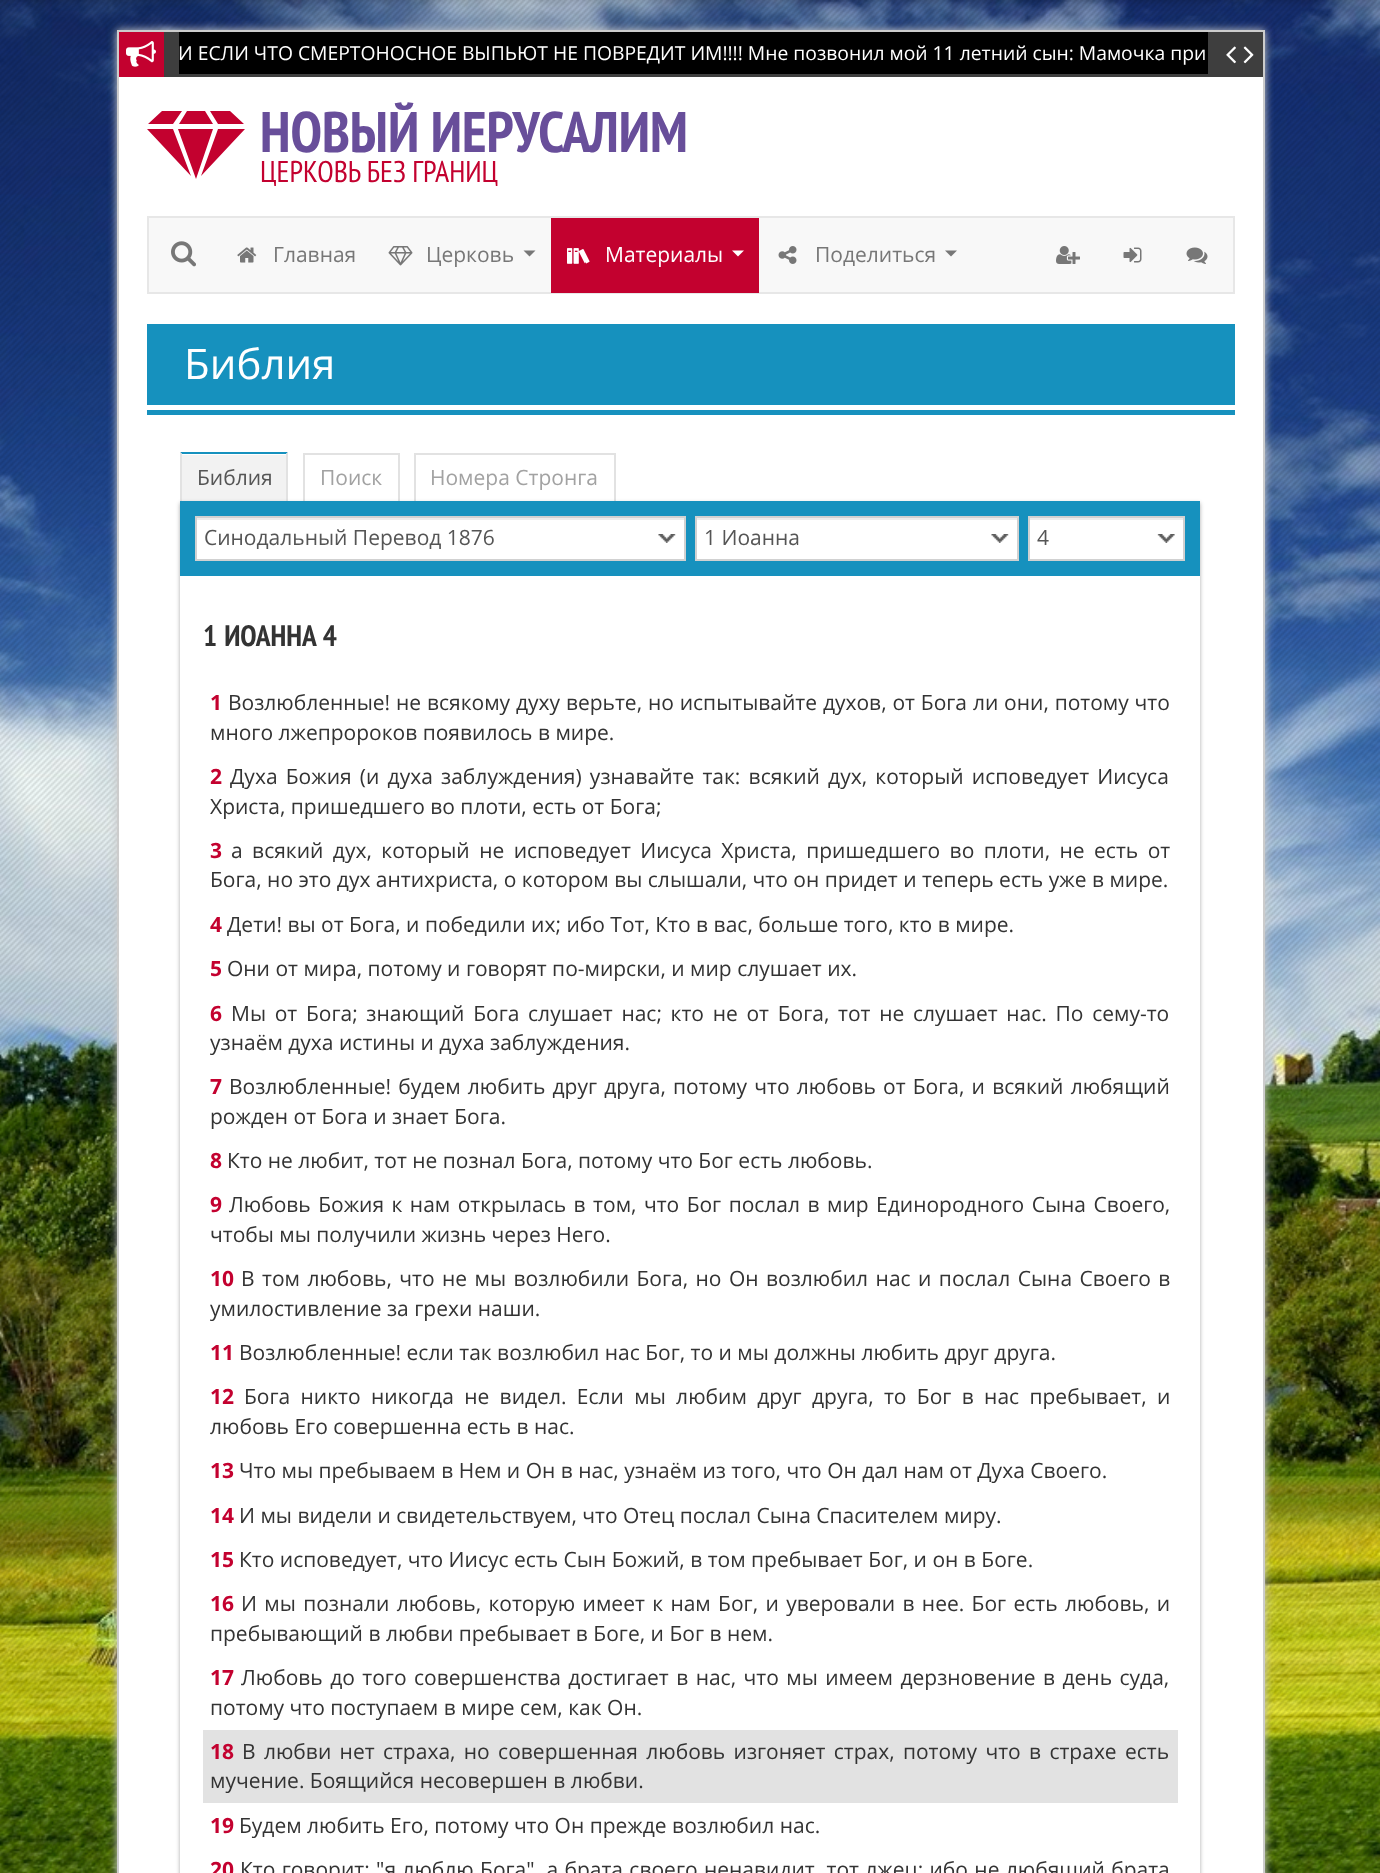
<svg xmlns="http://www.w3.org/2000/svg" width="1380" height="1873">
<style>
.a{font:19.32px Open Sans;fill:#fff}
.b{font:bold 57px PT Sans Narrow;fill:#684e9a}
.c{font:30px PT Sans Narrow;fill:#c3012f}
.d{font:21px Open Sans;fill:#777}
.e{font:21px Open Sans;fill:#fff}
.f{font:42px Open Sans;fill:#fff}
.g{font:21px Open Sans;fill:#555}
.h{font:21px Open Sans;fill:#a2a2a2}
.i{font:bold 29.5px PT Sans Narrow;fill:#333}
.j{font:bold 21px Open Sans;fill:#c3012f}
.k{font:21px Open Sans;fill:#333}
</style>
<defs>
<clipPath id="clip1"><path d="M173 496h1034v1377h-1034zm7 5h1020v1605h-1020z" clip-rule="evenodd"/></clipPath>
</defs>
<rect width="100%" height="100%" fill="#fff"/>
<image href="1.png" x="0" y="0" width="1380" height="1873"/>
<image href="2.png" x="0" y="0" width="1380" height="1873"/>
<path fill="#000000cc" filter="blur(7.5px)" d="M0 -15h1380v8H0z"/>
<path fill="#cacaca" filter="blur(4px)" d="M117 30h1148v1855H117z"/>
<path fill="#fff" d="M119 77h1144v1796H119z"/>
<path fill="none" stroke="#ccc" stroke-width="2" d="M118 31h1146v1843H118z"/>
<path fill="#3e3e3e" d="M164 32h1099v45H164z"/>
<path fill="#c3012f" d="M119 32h45v45H119z"/>
<image href="3.png" x="126" y="41" width="30" height="26"/>
<path fill="#000" d="M179 32h1029v42H179z"/>
<image href="4.png" x="1226" y="46" width="10" height="18"/>
<image href="5.png" x="1243" y="46" width="11" height="18"/>
<path fill="#c3012f" d="M213 129l-17 50l-18-50zm-66 0h26l18 47zm71 0h27l-44 47zm-5-5h-34l8-13h18zm31 0h-26l-8-13h20zm-71 0h-25l14-13h20z"/>
<path fill="#f8f8f8" stroke="#e7e7e7" stroke-width="2" d="M148 217h1086v76H148z"/>
<image href="6.png" x="171" y="241" width="25" height="26"/>
<image href="7.png" x="237" y="247" width="20" height="16"/>
<image href="8.png" x="388" y="246" width="25" height="20"/>
<path fill="#777" d="M523.5 250.5h12l-6 6z"/>
<path fill="#c3012f" d="M551 218h208v75H551z"/>
<image href="9.png" x="567" y="248" width="23" height="16"/>
<path fill="#fff" d="M732 250.5h12l-6 6z"/>
<image href="10.png" x="778" y="246" width="19" height="18"/>
<path fill="#777" d="M945 250.5h12l-6 6z"/>
<image href="11.png" x="1056" y="246" width="24" height="18"/>
<image href="12.png" x="1123" y="247" width="19" height="16"/>
<image href="13.png" x="1186" y="247" width="22" height="17"/>
<path fill="#1691be" d="M147 324h1088v81H147z"/>
<path fill="#1691be" d="M147 410h1088v5H147z"/>
<path fill="#f2f2f2" d="M182 455h104v46H182z"/>
<path fill="#1691be" d="M180 452h108l-2 2h-104z"/>
<path fill="#e2e2e2" d="M288 452v49h-2v-47z"/>
<path fill="#e2e2e2" d="M180 501v-49l2 2v47z"/>
<path fill="#e2e2e2" d="M303 453h96v2H303z"/>
<path fill="#e2e2e2" d="M398 453h2v48H398z"/>
<path fill="#e2e2e2" d="M303 453h2v48H303z"/>
<path fill="#e2e2e2" d="M414 453h201v2H414z"/>
<path fill="#e2e2e2" d="M614 453h2v48H614z"/>
<path fill="#e2e2e2" d="M414 453h2v48H414z"/>
<g clip-path="url(#clip1)">
<path fill="#00000054" filter="blur(2px)" d="M180 503h1020v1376H180z"/>
</g>
<path fill="#1691be" d="M180 501h1020v75H180z"/>
<path fill="#fff" d="M197 520h487v39H197z"/>
<image href="14.png" x="658" y="534" width="18" height="9"/>
<path fill="#ececec" d="M197 518h487v2H197z"/>
<path fill="none" stroke="#d1d1d1" stroke-width="2" d="M196 517h489v43H196z"/>
<path fill="#fff" d="M697 520h320v39H697z"/>
<image href="14.png" x="991" y="534" width="18" height="9"/>
<path fill="#ececec" d="M696 518h321v2H696z"/>
<path fill="none" stroke="#d1d1d1" stroke-width="2" d="M696 517h322v43H696z"/>
<path fill="#fff" d="M1030 520h153v39H1030z"/>
<image href="15.png" x="1157" y="534" width="18" height="9"/>
<path fill="#ececec" d="M1029 518h155v2H1029z"/>
<path fill="none" stroke="#d1d1d1" stroke-width="2" d="M1029 517h155v43H1029z"/>
<path fill="#e2e2e2" d="M203 1730h975v73H203z"/>
<text class="a" x="178" y="60">И ЕСЛИ ЧТО СМЕРТОНОСНОЕ ВЫПЬЮТ НЕ ПОВРЕДИТ ИМ!!!! Мне позвонил мой 11 летний сын: Мамочка при</text>
<text class="b" x="260" y="152">НОВЫЙ ИЕРУСАЛИМ</text>
<text class="c" x="260" y="182">ЦЕРКОВЬ БЕЗ ГРАНИЦ</text>
<text class="d" x="273" y="262">Главная</text>
<text class="d" x="426" y="262">Церковь</text>
<text class="e" x="605" y="262">Материалы</text>
<text class="d" x="815" y="262">Поделиться</text>
<text class="f" x="184" y="379">Библия</text>
<text class="g" x="197" y="485">Библия</text>
<text class="h" x="320" y="485">Поиск</text>
<text class="h" x="430" y="485">Номера Стронга</text>
<text class="g" x="204" y="545">Синодальный Перевод 1876</text>
<text class="g" x="704" y="545">1 Иоанна</text>
<text class="g" x="1037" y="545">4</text>
<text class="i" x="203" y="646" word-spacing="1">1 ИОАННА 4</text>
<text class="j" x="210" y="710">1</text>
<text class="k" x="228" y="710" word-spacing="0.4">Возлюбленные! не всякому духу верьте, но испытывайте духов, от Бога ли они, потому что</text>
<text class="k" x="210" y="740">много лжепророков появилось в мире.</text>
<text class="j" x="210" y="784">2</text>
<text class="k" x="230" y="784" word-spacing="2.75">Духа Божия (и духа заблуждения) узнавайте так: всякий дух, который исповедует Иисуса</text>
<text class="k" x="210" y="814">Христа, пришедшего во плоти, есть от Бога;</text>
<text class="j" x="210" y="858">3</text>
<text class="k" x="231" y="858" word-spacing="4">а всякий дух, который не исповедует Иисуса Христа, пришедшего во плоти, не есть от</text>
<text class="k" x="210" y="887">Бога, но это дух антихриста, о котором вы слышали, что он придет и теперь есть уже в мире.</text>
<text class="j" x="210" y="932">4</text>
<text class="k" x="227" y="932">Дети! вы от Бога, и победили их; ибо Тот, Кто в вас, больше того, кто в мире.</text>
<text class="j" x="210" y="976">5</text>
<text class="k" x="227" y="976">Они от мира, потому и говорят по-мирски, и мир слушает их.</text>
<text class="j" x="210" y="1021">6</text>
<text class="k" x="231" y="1021" word-spacing="3.25">Мы от Бога; знающий Бога слушает нас; кто не от Бога, тот не слушает нас. По сему-то</text>
<text class="k" x="210" y="1050">узнаём духа истины и духа заблуждения.</text>
<text class="j" x="210" y="1094">7</text>
<text class="k" x="229" y="1094" word-spacing="1.75">Возлюбленные! будем любить друг друга, потому что любовь от Бога, и всякий любящий</text>
<text class="k" x="210" y="1124">рожден от Бога и знает Бога.</text>
<text class="j" x="210" y="1168">8</text>
<text class="k" x="227" y="1168">Кто не любит, тот не познал Бога, потому что Бог есть любовь.</text>
<text class="j" x="210" y="1212">9</text>
<text class="k" x="229" y="1212" word-spacing="2">Любовь Божия к нам открылась в том, что Бог послал в мир Единородного Сына Своего,</text>
<text class="k" x="210" y="1242">чтобы мы получили жизнь через Него.</text>
<text class="j" x="210" y="1286">10</text>
<text class="k" x="241" y="1286" word-spacing="2">В том любовь, что не мы возлюбили Бога, но Он возлюбил нас и послал Сына Своего в</text>
<text class="k" x="210" y="1316">умилостивление за грехи наши.</text>
<text class="j" x="210" y="1360">11</text>
<text class="k" x="239" y="1360">Возлюбленные! если так возлюбил нас Бог, то и мы должны любить друг друга.</text>
<text class="j" x="210" y="1404">12</text>
<text class="k" x="244" y="1404" word-spacing="4.9">Бога никто никогда не видел. Если мы любим друг друга, то Бог в нас пребывает, и</text>
<text class="k" x="210" y="1434">любовь Его совершенна есть в нас.</text>
<text class="j" x="210" y="1478">13</text>
<text class="k" x="239" y="1478">Что мы пребываем в Нем и Он в нас, узнаём из того, что Он дал нам от Духа Своего.</text>
<text class="j" x="210" y="1523">14</text>
<text class="k" x="239" y="1523">И мы видели и свидетельствуем, что Отец послал Сына Спасителем миру.</text>
<text class="j" x="210" y="1567">15</text>
<text class="k" x="239" y="1567">Кто исповедует, что Иисус есть Сын Божий, в том пребывает Бог, и он в Боге.</text>
<text class="j" x="210" y="1611">16</text>
<text class="k" x="241" y="1611" word-spacing="1.9">И мы познали любовь, которую имеет к нам Бог, и уверовали в нее. Бог есть любовь, и</text>
<text class="k" x="210" y="1641">пребывающий в любви пребывает в Боге, и Бог в нем.</text>
<text class="j" x="210" y="1685">17</text>
<text class="k" x="241" y="1685" word-spacing="2">Любовь до того совершенства достигает в нас, что мы имеем дерзновение в день суда,</text>
<text class="k" x="210" y="1715">потому что поступаем в мире сем, как Он.</text>
<text class="j" x="210" y="1759">18</text>
<text class="k" x="242" y="1759" word-spacing="2.9">В любви нет страха, но совершенная любовь изгоняет страх, потому что в страхе есть</text>
<text class="k" x="210" y="1788">мучение. Боящийся несовершен в любви.</text>
<text class="j" x="210" y="1833">19</text>
<text class="k" x="239" y="1833">Будем любить Его, потому что Он прежде возлюбил нас.</text>
<text class="j" x="210" y="1877">20</text>
<text class="k" x="240" y="1877" word-spacing="0.9">Кто говорит: "я люблю Бога", а брата своего ненавидит, тот лжец: ибо не любящий брата</text>
</svg>
